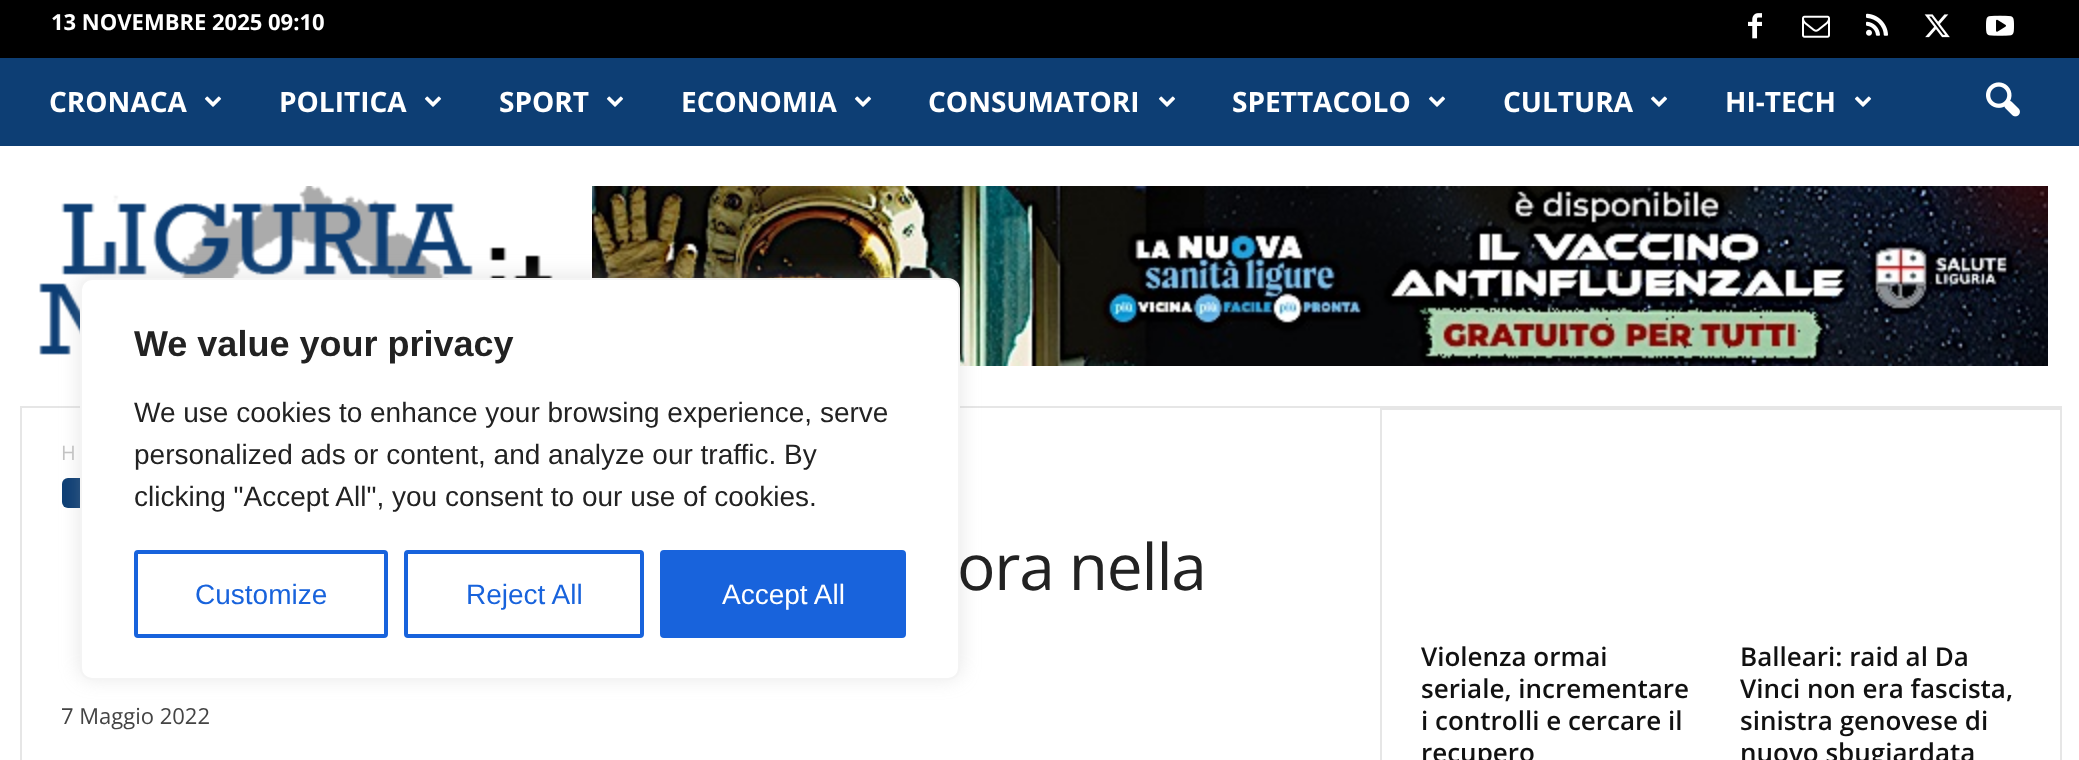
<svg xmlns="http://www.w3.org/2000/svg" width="2079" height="760">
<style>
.a{font:bold 22px Open Sans;fill:#fff}
.b{font:bold 28px Open Sans;fill:#fff}
.c{font:20px Open Sans;fill:#c3c3c3}
.d{font:64px Open Sans;letter-spacing:-1.25px;fill:#222}
.e{font:22px Open Sans;fill:#444}
.f{font:600 26px Open Sans;fill:#111}
.g{font:bold 36px Liberation Sans;fill:#222}
.h{font:28px Liberation Sans;fill:#222}
.i{font:28px Liberation Sans;fill:#1863dc}
.j{font:28px Liberation Sans;fill:#fff}
</style>
<rect width="100%" height="100%" fill="#fff"/>
<path fill="#000" d="M0 0h2079v58H0z"/>
<image href="1.png" x="1748" y="13" width="14" height="26"/>
<image href="2.png" x="1802" y="15" width="28" height="23"/>
<image href="3.png" x="1866" y="13" width="22" height="23"/>
<image href="4.png" x="1924" y="14" width="26" height="24"/>
<image href="5.png" x="1986" y="15" width="28" height="21"/>
<path fill="#0d3e74" d="M0 58h2079v88H0z"/>
<image href="6.png" x="204" y="96" width="18" height="11"/>
<image href="6.png" x="424" y="96" width="18" height="11"/>
<image href="6.png" x="606" y="96" width="18" height="11"/>
<image href="6.png" x="854" y="96" width="18" height="11"/>
<image href="6.png" x="1158" y="96" width="18" height="11"/>
<image href="6.png" x="1428" y="96" width="18" height="11"/>
<image href="6.png" x="1650" y="96" width="18" height="11"/>
<image href="6.png" x="1854" y="96" width="18" height="11"/>
<image href="7.png" x="1986" y="82" width="34" height="35"/>
<path fill="#e6e6e6" d="M20 406h2042v2H20z"/>
<image href="8.png" x="39" y="186" width="514" height="169"/>
<image href="9.png" x="592" y="186" width="1456" height="180"/>
<path fill="#e6e6e6" d="M20 408h2v352H20z"/>
<rect fill="#0d3e74" x="62" y="478" width="84" height="30" rx="6"/>
<path fill="#e6e6e6" d="M1380 408h2v352H1380z"/>
<path fill="#e6e6e6" d="M1382 408h678v2H1382z"/>
<path fill="#e6e6e6" d="M2060 408h2v352H2060z"/>
<rect fill="#acabab4d" filter="blur(10px)" x="80" y="276" width="880" height="402" rx="12"/>
<rect fill="#fff" stroke="#f4f4f4" stroke-width="2" x="81" y="279" width="878" height="400" rx="11"/>
<rect fill="none" stroke="#1863dc" stroke-width="4" x="136" y="552" width="250" height="84" rx="2"/>
<rect fill="none" stroke="#1863dc" stroke-width="4" x="406" y="552" width="236" height="84" rx="2"/>
<rect fill="#1863dc" stroke="#1863dc" stroke-width="4" x="662" y="552" width="242" height="84" rx="2"/>
<text class="a" x="51" y="30">13 NOVEMBRE 2025 09:10</text>
<text class="b" x="49" y="112">CRONACA</text>
<text class="b" x="279" y="112">POLITICA</text>
<text class="b" x="499" y="112">SPORT</text>
<text class="b" x="681" y="112">ECONOMIA</text>
<text class="b" x="928" y="112">CONSUMATORI</text>
<text class="b" x="1232" y="112">SPETTACOLO</text>
<text class="b" x="1503" y="112">CULTURA</text>
<text class="b" x="1725" y="112">HI-TECH</text>
<text class="c" x="61" y="460">H</text>
<text class="d" x="957" y="590">ora nella</text>
<text class="e" x="61" y="724">7 Maggio 2022</text>
<text class="f" x="1421" y="666">Violenza ormai</text>
<text class="f" x="1421" y="698">seriale, incrementare</text>
<text class="f" x="1421" y="730">i controlli e cercare il</text>
<text class="f" x="1421" y="762">recupero</text>
<text class="f" x="1740" y="666">Balleari: raid al Da</text>
<text class="f" x="1740" y="698">Vinci non era fascista,</text>
<text class="f" x="1740" y="730">sinistra genovese di</text>
<text class="f" x="1740" y="762">nuovo sbugiardata</text>
<text class="g" x="134" y="356">We value your privacy</text>
<text class="h" x="134" y="422">We use cookies to enhance your browsing experience, serve</text>
<text class="h" x="134" y="464">personalized ads or content, and analyze our traffic. By</text>
<text class="h" x="134" y="506">clicking "Accept All", you consent to our use of cookies.</text>
<text class="i" x="195" y="604">Customize</text>
<text class="i" x="466" y="604">Reject All</text>
<text class="j" x="722" y="604">Accept All</text>
</svg>
